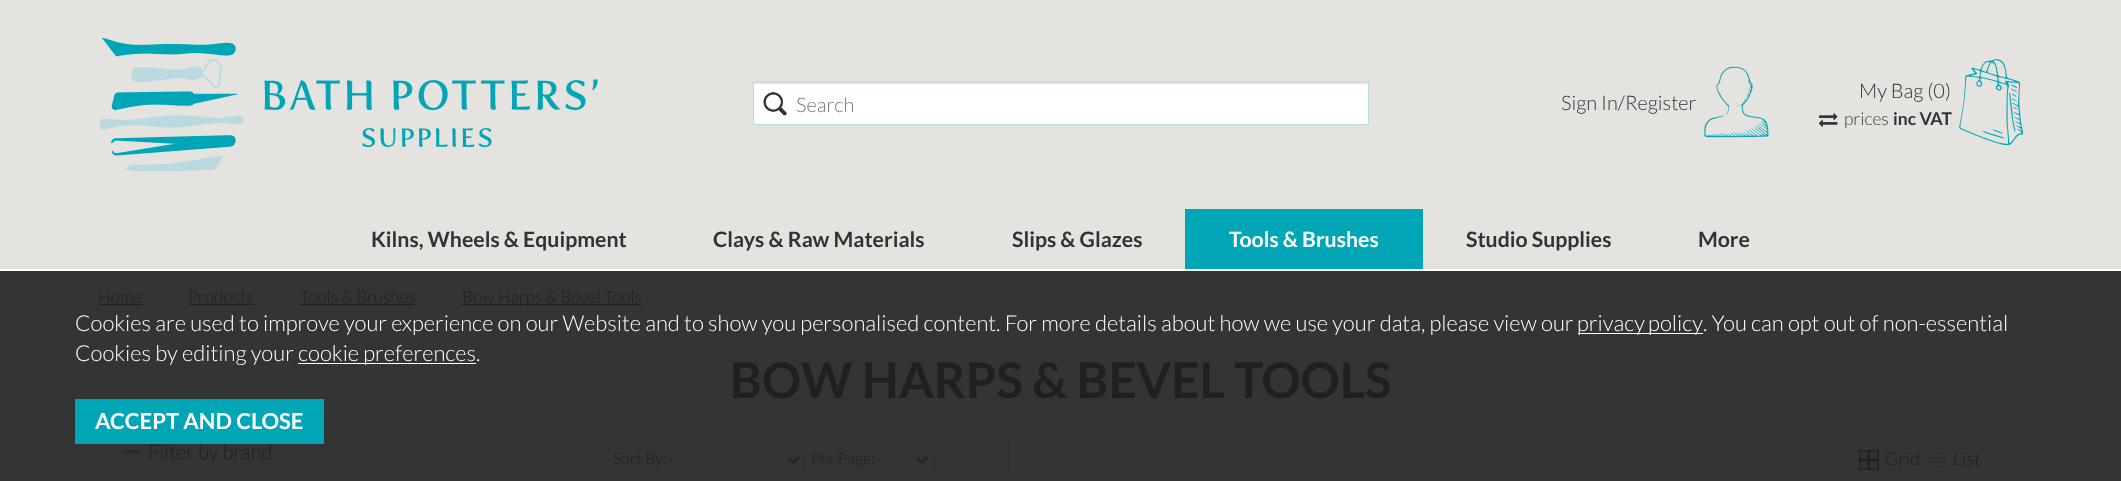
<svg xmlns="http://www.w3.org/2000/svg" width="2121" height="481">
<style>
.a{font:300 20px Lato;fill:#757575}
.b{font:300 20px Lato;fill:#333}
.c{font:300 17.5px Lato;fill:#333}
.d{font:bold 17.5px Lato;fill:#333}
.e{font:bold 21.25px Lato;fill:#333}
.f{font:bold 21.25px Lato;fill:#fff}
.g{font:300 17px Lato;fill:#202020}
.h{font:bold 49px Lato;fill:#202020}
.i{font:300 20px Lato;fill:#202020}
.j{font:300 16px Lato;fill:#202020}
.k{font:300 18px Lato;fill:#202020}
.l{font:300 22px Lato;fill:#fff}
.m{font:bold 22px Lato;fill:#fff}
</style>
<rect width="100%" height="100%" fill="#fff"/>
<path fill="#343434" d="M0 271h2121v210H0z"/>
<path fill="#e4e3e0" d="M0 0h2121v269H0z"/>
<image href="1.png" x="99" y="38" width="499" height="133"/>
<path fill="none" stroke="#bad9e0" d="M753.5 81.5h615v43H753.5z"/>
<path fill="#fff" d="M754 84h614v40H754z"/>
<image href="2.png" x="763" y="92" width="24" height="24"/>
<image href="3.png" x="1704" y="66" width="65" height="72"/>
<image href="4.png" x="1959" y="59" width="64" height="86"/>
<image href="5.png" x="1819" y="113" width="19" height="14"/>
<path fill="#00a6b6" d="M1185 209h238v60H1185z"/>
<path fill="#202020" d="M99 304h44v1H99z"/>
<path fill="#202020" d="M189 304h65v1H189z"/>
<path fill="#202020" d="M300 304h115v1H300z"/>
<path fill="#202020" d="M461 304h180v1H461z"/>
<path fill="#2a2a2a" d="M122 450h19v3H122z"/>
<path fill="none" stroke="#2f2f2f" d="M671.5 448.5h133v24H671.5z"/>
<path fill="none" stroke="#252525" stroke-width="2.5" d="M788.5 457.5l5 5l5-5"/>
<path fill="none" stroke="#2f2f2f" d="M879.5 448.5h54v24H879.5z"/>
<path fill="none" stroke="#252525" stroke-width="2.5" d="M917 457.5l5 5l5-5"/>
<path fill="none" stroke="#313131" d="M938.5 440.5h70v34H938.5z"/>
<path fill="#202020" d="M1859 450h20v20H1859z"/>
<image href="6.png" x="1859" y="451" width="19" height="18"/>
<image href="7.png" x="1928" y="451" width="19" height="18"/>
<path fill="#fff" d="M1578 333h125v1H1578z"/>
<path fill="#fff" d="M298 363h178v1H298z"/>
<path fill="#00a6b6" d="M75 399h249v45H75z"/>
<text class="a" x="796" y="112">Search</text>
<text class="b" x="1561" y="110">Sign In/Register</text>
<text class="b" x="1859" y="98">My Bag (0)</text>
<text class="c" x="1844" y="125">prices</text>
<text class="d" x="1893" y="125">inc VAT</text>
<text class="e" x="371" y="247">Kilns, Wheels &amp; Equipment</text>
<text class="e" x="713" y="247">Clays &amp; Raw Materials</text>
<text class="e" x="1012" y="247">Slips &amp; Glazes</text>
<text class="f" x="1229" y="247">Tools &amp; Brushes</text>
<text class="e" x="1466" y="247">Studio Supplies</text>
<text class="e" x="1698" y="247">More</text>
<text class="g" x="98" y="303">Home</text>
<text class="g" x="188" y="303">Products</text>
<text class="g" x="300" y="303">Tools &amp; Brushes</text>
<text class="g" x="462" y="303">Bow Harps &amp; Bevel Tools</text>
<text class="h" x="730" y="398">BOW HARPS &amp; BEVEL TOOLS</text>
<text class="i" x="148" y="459">Filter by brand</text>
<text class="j" x="613" y="464">Sort By:</text>
<text class="j" x="811" y="464">Per Page:</text>
<text class="k" x="1885" y="465">Grid</text>
<text class="k" x="1953" y="465">List</text>
<text class="l" x="75" y="331">Cookies are used to improve your experience on our Website and to show you personalised content. For more details about how we use your data, please view our</text>
<text class="l" x="1577" y="331" word-spacing="-1">privacy policy</text>
<text class="l" x="1703" y="331">. You can opt out of non-essential</text>
<text class="l" x="75" y="361">Cookies by editing your</text>
<text class="l" x="298" y="361">cookie preferences.</text>
<text class="m" x="95" y="429">ACCEPT AND CLOSE</text>
</svg>
